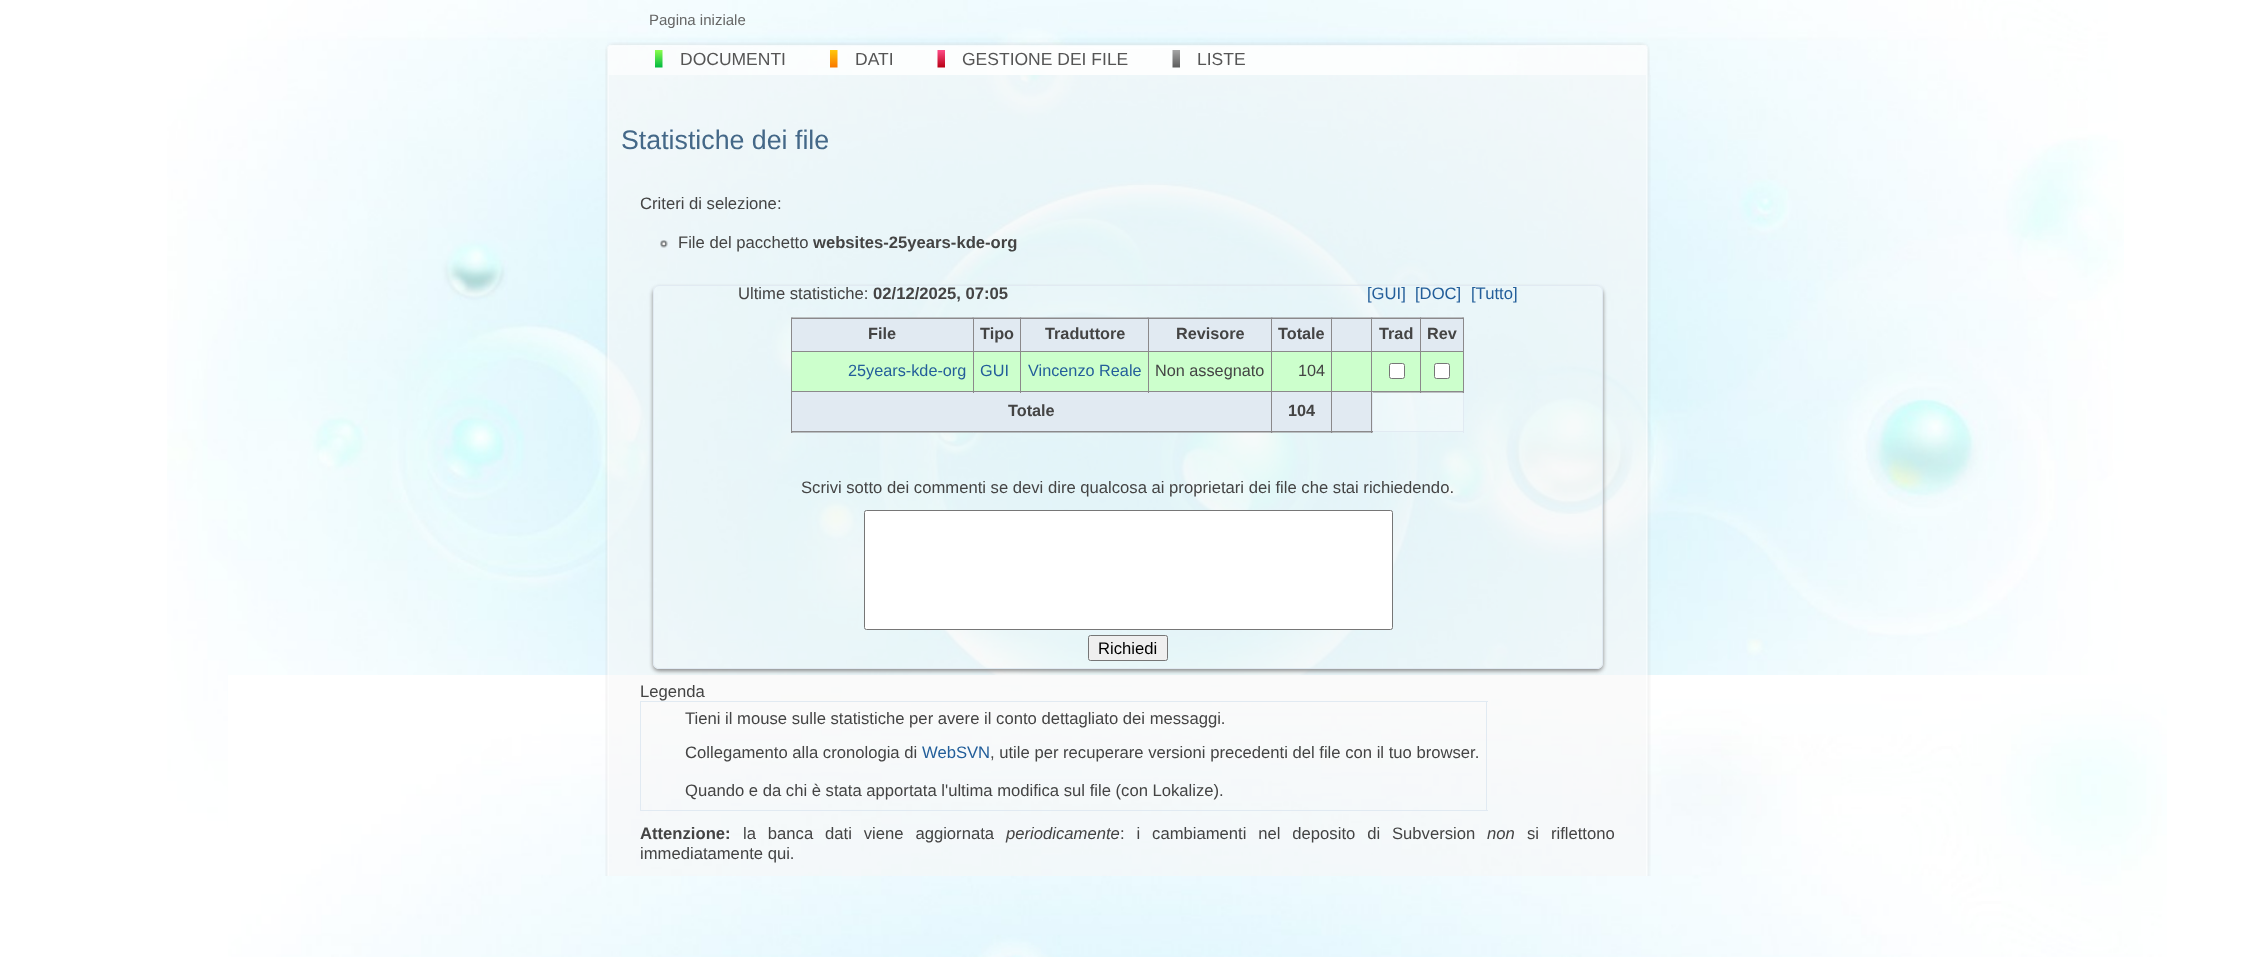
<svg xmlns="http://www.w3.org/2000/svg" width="2254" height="957">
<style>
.a{font:15px Liberation Sans;fill:#666}
.b{font:17.5px Liberation Sans;fill:#555}
.c{font:26.75px Liberation Sans;fill:#446888}
.d{font:16.65px Liberation Sans;fill:#444}
.e{font:bold 16.65px Liberation Sans;fill:#444}
.f{font:16.65px Liberation Sans;fill:#235e9a}
.g{font:bold 16.25px Liberation Sans;fill:#444}
.h{font:16.25px Liberation Sans;fill:#235e9a}
.i{font:16.25px Liberation Sans;fill:#444}
.j{font:16.65px Liberation Sans;fill:#000}
.k{font:italic 16.65px Liberation Sans;fill:#444}
</style>
<defs>
<clipPath id="clip1"><path d="M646 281h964v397h-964zm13 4h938c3.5 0 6 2.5 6 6v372c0 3.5-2.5 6-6 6h-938c-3.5 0-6-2.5-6-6v-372c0-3.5 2.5-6 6-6z" clip-rule="evenodd"/></clipPath>
</defs>
<rect width="100%" height="100%" fill="#fff"/>
<image href="1.png" x="167" y="0" width="1957" height="851"/>
<image href="2.png" x="228" y="675" width="1939" height="282"/>
<image href="3.png" x="605" y="42" width="1045" height="33"/>
<image href="4.png" x="655" y="50" width="8" height="18"/>
<image href="5.png" x="830" y="50" width="8" height="18"/>
<image href="6.png" x="937" y="50" width="8" height="18"/>
<image href="7.png" x="1172" y="50" width="8" height="18"/>
<image href="8.png" x="605" y="75" width="1046" height="801"/>
<image href="9.png" x="660" y="240" width="8" height="8"/>
<g clip-path="url(#clip1)">
<rect fill="#888" filter="blur(2px)" x="653" y="288" width="950" height="383" rx="6"/>
</g>
<rect fill="none" stroke="#e1eaf2" x="653.5" y="285.5" width="949" height="383" rx="5.5"/>
<image href="10.png" x="791" y="317" width="673" height="116"/>
<path fill="#e1eaf2" d="M1463 393h1v40H1463z"/>
<path fill="#e1eaf2" d="M1373 431h91v1H1373z"/>
<path fill="#e1eaf2" d="M792 319h181v32H792z"/>
<path fill="#e1eaf2" d="M1272 319h148v32H1272z"/>
<path fill="#8b898b" d="M1371 318h93v1H1371z"/>
<path fill="#cfc" d="M792 352h671v39H792z"/>
<path fill="#8b898b" d="M1420 351h44v1H1420z"/>
<path fill="#8b898b" d="M1463 351h1v42H1463z"/>
<path fill="#8b898b" d="M1420 391h44v1H1420z"/>
<path fill="#8b898b" d="M1420 351h1v42H1420z"/>
<path fill="#8b898b" d="M1371 351h50v1H1371z"/>
<path fill="#8b898b" d="M1331 391h42v1H1331z"/>
<path fill="#e1eaf2" d="M1272 392h101v39H1272z"/>
<path fill="#8b898b" d="M1371 391h1v42H1371z"/>
<path fill="#8b898b" d="M1371 391h50v1H1371z"/>
<path fill="#8b898b" d="M1371 351h1v42H1371z"/>
<path fill="#8b898b" d="M1331 351h42v1H1331z"/>
<path fill="#8b898b" d="M1371 318h1v35H1371z"/>
<path fill="#8b898b" d="M1331 318h42v1H1331z"/>
<path fill="#8b898b" d="M1331 431h42v1H1331z"/>
<path fill="#8b898b" d="M1331 391h1v42H1331z"/>
<path fill="#8b898b" d="M1271 391h62v1H1271z"/>
<path fill="#8b898b" d="M1331 351h1v42H1331z"/>
<path fill="#8b898b" d="M1271 351h62v1H1271z"/>
<path fill="#8b898b" d="M1331 318h1v35H1331z"/>
<path fill="#8b898b" d="M1271 318h62v1H1271z"/>
<path fill="#8b898b" d="M1271 431h62v1H1271z"/>
<path fill="#8b898b" d="M1271 391h1v42H1271z"/>
<path fill="#8b898b" d="M791 391h482v1H791z"/>
<path fill="#8b898b" d="M1271 351h1v42H1271z"/>
<path fill="#8b898b" d="M1148 351h125v1H1148z"/>
<path fill="#8b898b" d="M1271 318h1v35H1271z"/>
<path fill="#8b898b" d="M1148 318h125v1H1148z"/>
<path fill="#e1eaf2" d="M792 392h479v39H792z"/>
<path fill="#8b898b" d="M1148 351h1v42H1148z"/>
<path fill="#8b898b" d="M1020 351h129v1H1020z"/>
<path fill="#8b898b" d="M1148 318h1v35H1148z"/>
<path fill="#8b898b" d="M973 318h176v1H973z"/>
<path fill="#8b898b" d="M1020 351h1v42H1020z"/>
<path fill="#8b898b" d="M973 351h48v1H973z"/>
<path fill="#8b898b" d="M973 351h1v42H973z"/>
<path fill="#8b898b" d="M791 351h183v1H791z"/>
<path fill="#8b898b" d="M973 318h1v35H973z"/>
<path fill="#8b898b" d="M791 318h183v1H791z"/>
<path fill="#8b898b" d="M791 431h482v1H791z"/>
<path fill="#8b898b" d="M791 391h1v42H791z"/>
<path fill="#8b898b" d="M791 351h1v42H791z"/>
<path fill="#8b898b" d="M791 318h1v35H791z"/>
<path fill="#e1eaf2" d="M974 319h46v32H974z"/>
<path fill="#e1eaf2" d="M1021 319h127v32H1021z"/>
<path fill="#e1eaf2" d="M1149 319h122v32H1149z"/>
<path fill="#e1eaf2" d="M1421 319h42v32H1421z"/>
<path fill="#8b898b" d="M1463 318h1v35H1463z"/>
<rect fill="#fff" stroke="#767676" x="1389.5" y="363.5" width="15" height="15" rx="2"/>
<rect fill="#fff" stroke="#767676" x="1434.5" y="363.5" width="15" height="15" rx="2"/>
<rect fill="#fff" stroke="#767676" x="864.5" y="510.5" width="528" height="119" rx="2"/>
<rect fill="#efefef" stroke="#767676" x="1088.5" y="635.5" width="79" height="25" rx="2"/>
<path fill="#e1eaf2" d="M640 701h848v1H640z"/>
<path fill="#e1eaf2" d="M1486 701h1v110H1486z"/>
<path fill="#e1eaf2" d="M640 810h848v1H640z"/>
<path fill="#e1eaf2" d="M640 701h1v110H640z"/>
<text class="a" x="649" y="25">Pagina iniziale</text>
<text class="b" x="680" y="65">DOCUMENTI</text>
<text class="b" x="855" y="65">DATI</text>
<text class="b" x="962" y="65">GESTIONE DEI FILE</text>
<text class="b" x="1197" y="65">LISTE</text>
<text class="c" x="621" y="149">Statistiche dei file</text>
<text class="d" x="640" y="209">Criteri di selezione:</text>
<text class="d" x="678" y="248">File del pacchetto</text>
<text class="e" x="813" y="248">websites-25years-kde-org</text>
<text class="d" x="738" y="299">Ultime statistiche:</text>
<text class="e" x="873" y="299">02/12/2025, 07:05</text>
<text class="f" x="1367" y="299">[GUI]</text>
<text class="f" x="1415" y="299">[DOC]</text>
<text class="f" x="1471" y="299">[Tutto]</text>
<text class="g" x="868" y="339">File</text>
<text class="g" x="980" y="339">Tipo</text>
<text class="g" x="1045" y="339">Traduttore</text>
<text class="g" x="1176" y="339">Revisore</text>
<text class="g" x="1278" y="339">Totale</text>
<text class="g" x="1379" y="339">Trad</text>
<text class="g" x="1427" y="339">Rev</text>
<text class="h" x="848" y="376">25years-kde-org</text>
<text class="h" x="980" y="376">GUI</text>
<text class="h" x="1028" y="376">Vincenzo Reale</text>
<text class="i" x="1155" y="376">Non assegnato</text>
<text class="i" x="1298" y="376">104</text>
<text class="g" x="1008" y="416">Totale</text>
<text class="g" x="1288" y="416">104</text>
<text class="d" x="801" y="493">Scrivi sotto dei commenti se devi dire qualcosa ai proprietari dei file che stai richiedendo.</text>
<text class="j" x="1098" y="654">Richiedi</text>
<text class="d" x="640" y="697">Legenda</text>
<text class="d" x="685" y="724">Tieni il mouse sulle statistiche per avere il conto dettagliato dei messaggi.</text>
<text class="d" x="685" y="758">Collegamento alla cronologia di</text>
<text class="f" x="922" y="758">WebSVN</text>
<text class="d" x="990" y="758">, utile per recuperare versioni precedenti del file con il tuo browser.</text>
<text class="d" x="685" y="796">Quando e da chi è stata apportata l'ultima modifica sul file (con Lokalize).</text>
<text class="e" x="640" y="839">Attenzione:</text>
<text class="d" x="743" y="839" word-spacing="7.25">la banca dati viene aggiornata</text>
<text class="k" x="1006" y="839">periodicamente</text>
<text class="d" x="1120" y="839" word-spacing="7.25">: i cambiamenti nel deposito di Subversion</text>
<text class="k" x="1487" y="839">non</text>
<text class="d" x="1527" y="839" word-spacing="7.25">si riflettono</text>
<text class="d" x="640" y="859">immediatamente qui.</text>
</svg>
